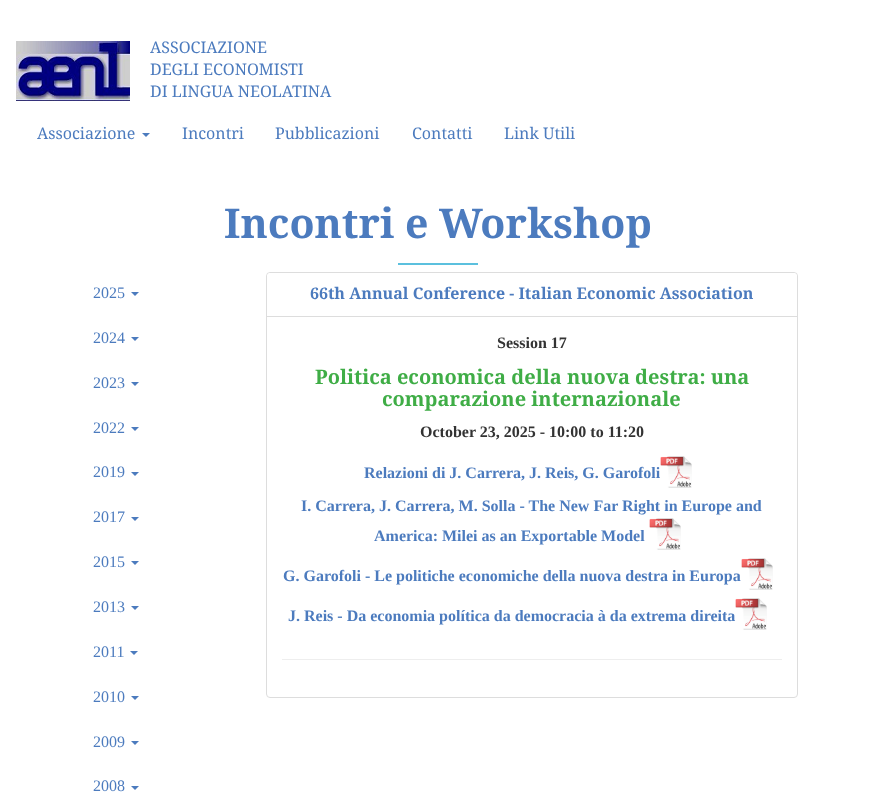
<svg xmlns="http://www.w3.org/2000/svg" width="876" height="800">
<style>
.a{font:16px Droid Serif;fill:#4c7bbe}
.b{font:bold 41px Droid Serif;fill:#4c7bbe}
.c{font:16px Liberation Serif;fill:#4c7bbe}
.d{font:bold 16px Droid Serif;fill:#4c7bbe}
.e{font:bold 16px Liberation Serif;fill:#333}
.f{font:bold 20px Droid Serif;fill:#3fad46}
.g{font:bold 16px Liberation Serif;fill:#4c7bbe}
</style>
<rect width="100%" height="100%" fill="#fff"/>
<image href="1.png" x="16" y="41" width="114" height="60"/>
<path fill="#4c7bbe" d="M142 133h8l-4 4z"/>
<path fill="#5bc0de" d="M398 263h80v2H398z"/>
<path fill="#4c7bbe" d="M131 292h8l-4 4z"/>
<path fill="#4c7bbe" d="M131 337h8l-4 4z"/>
<path fill="#4c7bbe" d="M131 382h8l-4 4z"/>
<path fill="#4c7bbe" d="M131 427h8l-4 4z"/>
<path fill="#4c7bbe" d="M131 472h8l-4 4z"/>
<path fill="#4c7bbe" d="M131 517h8l-4 4z"/>
<path fill="#4c7bbe" d="M131 561h8l-4 4z"/>
<path fill="#4c7bbe" d="M131 606h8l-4 4z"/>
<path fill="#4c7bbe" d="M130 651h8l-4 4z"/>
<path fill="#4c7bbe" d="M131 696h8l-4 4z"/>
<path fill="#4c7bbe" d="M131 741h8l-4 4z"/>
<path fill="#4c7bbe" d="M131 786h8l-4 4z"/>
<rect fill="none" stroke="#ddd" x="266.5" y="272.5" width="531" height="425" rx="3.5"/>
<path fill="#fff" d="M270 273h524c1.5 0 3 1.5 3 3v41h-530v-41c0-1.5 1.5-3 3-3z"/>
<path fill="#ddd" d="M267 316h530v1H267z"/>
<image href="2.png" x="660" y="456" width="32" height="32"/>
<image href="3.png" x="649" y="518" width="32" height="32"/>
<image href="4.png" x="741" y="558" width="32" height="32"/>
<path fill="#eee" d="M282 659h500v1H282z"/>
<text class="a" x="150" y="53">ASSOCIAZIONE</text>
<text class="a" x="150" y="75">DEGLI ECONOMISTI</text>
<text class="a" x="150" y="97">DI LINGUA NEOLATINA</text>
<text class="a" x="37" y="139">Associazione</text>
<text class="a" x="182" y="139">Incontri</text>
<text class="a" x="275" y="139">Pubblicazioni</text>
<text class="a" x="412" y="139">Contatti</text>
<text class="a" x="504" y="139">Link Utili</text>
<text class="b" x="224" y="238">Incontri e Workshop</text>
<text class="c" x="93" y="298">2025</text>
<text class="c" x="93" y="343">2024</text>
<text class="c" x="93" y="388">2023</text>
<text class="c" x="93" y="433">2022</text>
<text class="c" x="93" y="477">2019</text>
<text class="c" x="93" y="522">2017</text>
<text class="c" x="93" y="567">2015</text>
<text class="c" x="93" y="612">2013</text>
<text class="c" x="93" y="657">2011</text>
<text class="c" x="93" y="702">2010</text>
<text class="c" x="93" y="747">2009</text>
<text class="c" x="93" y="791">2008</text>
<text class="d" x="310" y="299">66th Annual Conference - Italian Economic Association</text>
<text class="e" x="497" y="348">Session 17</text>
<text class="f" x="315" y="384">Politica economica della nuova destra: una</text>
<text class="f" x="382" y="406">comparazione internazionale</text>
<text class="e" x="420" y="437">October 23, 2025 - 10:00 to 11:20</text>
<text class="g" x="364" y="478">Relazioni di J. Carrera, J. Reis, G. Garofoli</text>
<text class="g" x="301" y="511">I. Carrera, J. Carrera, M. Solla - The New Far Right in Europe and</text>
<text class="g" x="374" y="541">America: Milei as an Exportable Model</text>
<text class="g" x="283" y="581">G. Garofoli - Le politiche economiche della nuova destra in Europa</text>
<text class="g" x="288" y="621">J. Reis - Da economia política da democracia à da extrema direita</text>
<image href="5.png" x="735" y="598" width="32" height="32"/>
</svg>
